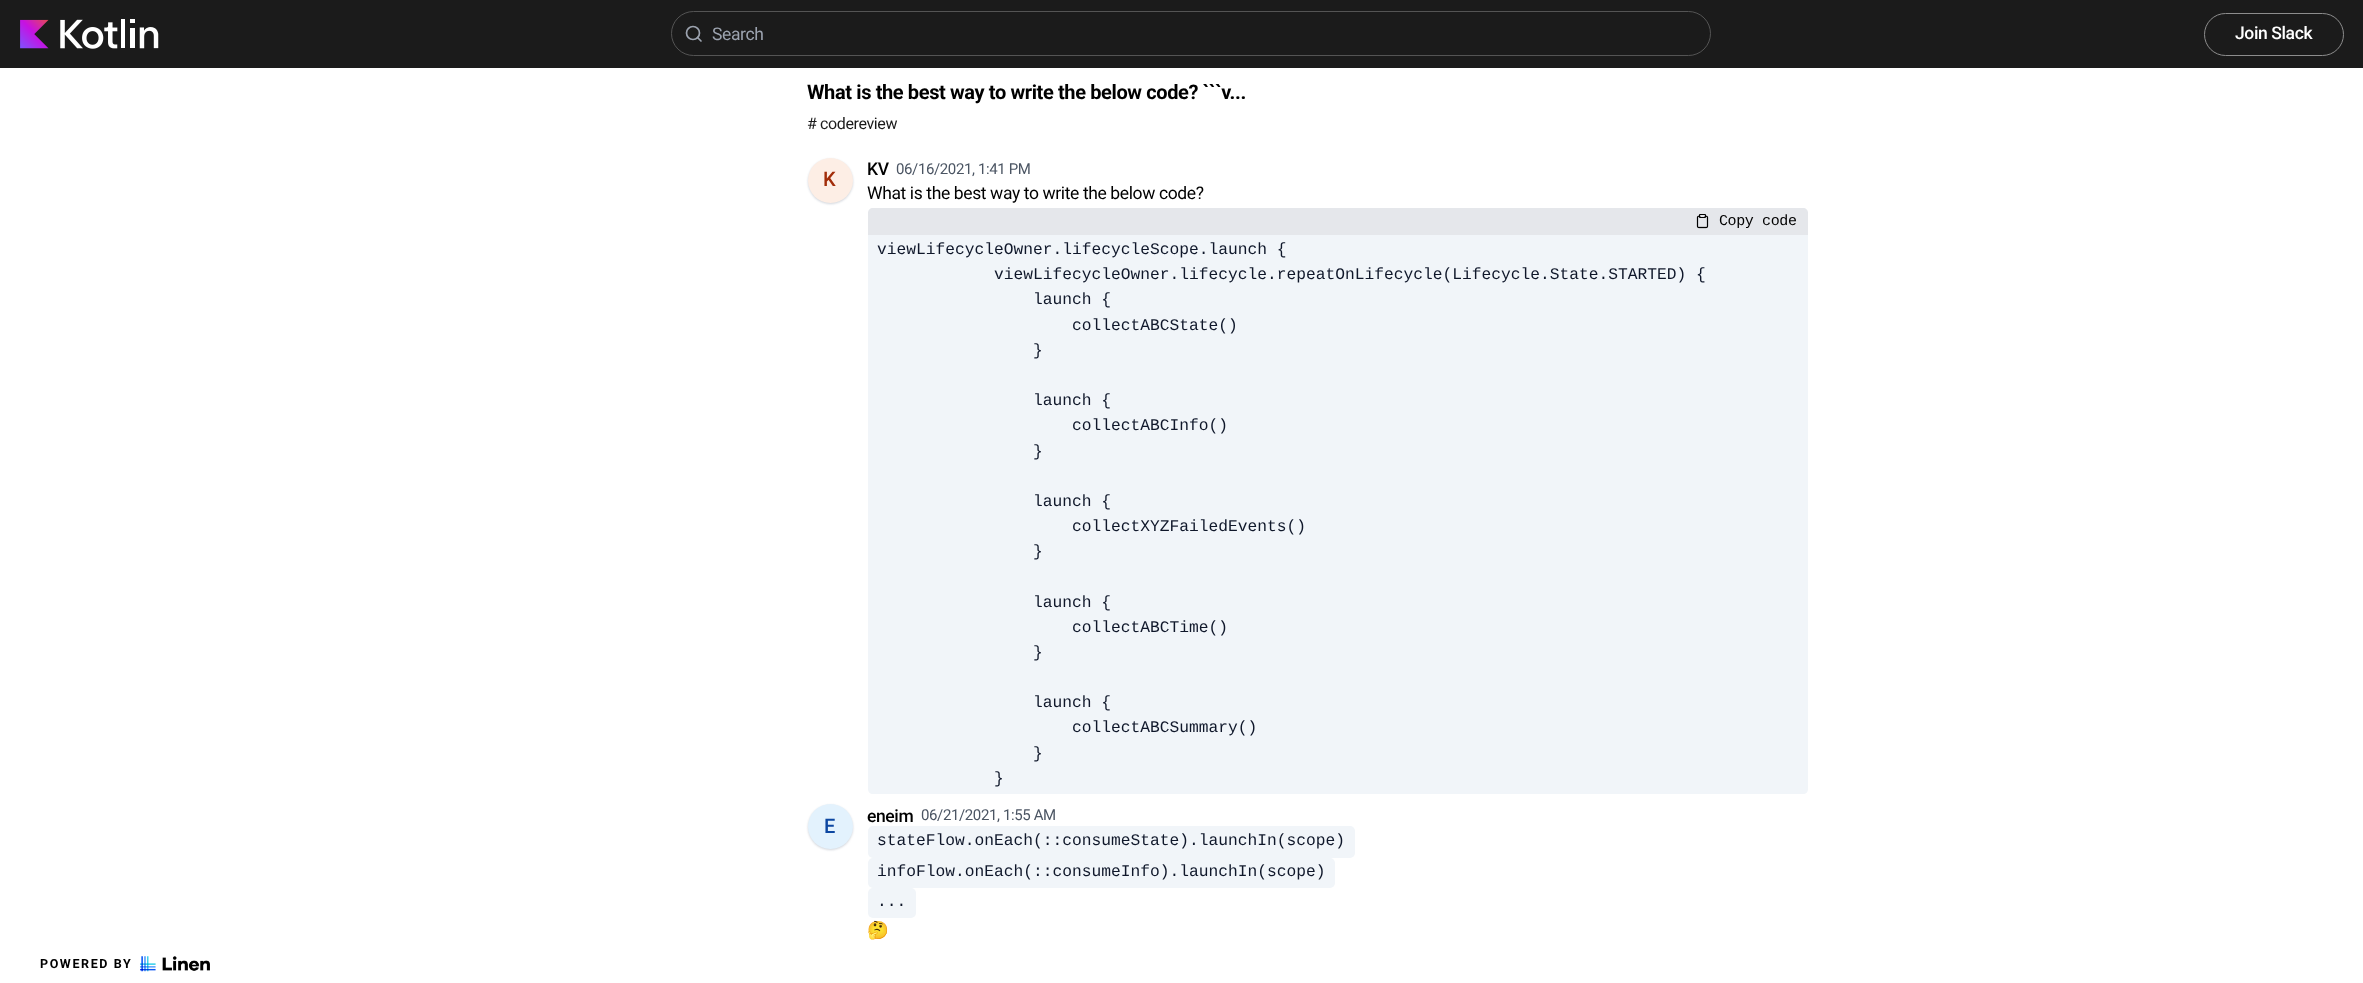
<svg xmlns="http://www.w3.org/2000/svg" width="2363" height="983">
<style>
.a{font:17.5px Roboto;letter-spacing:-0.38px;fill:#9ca3af}
.b{font:500 17.5px Roboto;letter-spacing:-0.38px;fill:#fff}
.c{font:bold 20px Roboto;letter-spacing:-0.38px;fill:#000}
.d{font:16px Roboto;letter-spacing:-0.38px;fill:#1a1a1a}
.e{font:500 20px Roboto;letter-spacing:-0.38px;fill:#a22d09}
.f{font:500 17.5px Roboto;letter-spacing:-0.38px;fill:#000}
.g{font:15px Roboto;letter-spacing:-0.38px;fill:#4b5563}
.h{font:17.5px Roboto;letter-spacing:-0.38px;fill:#000}
.i{font:15px Liberation Mono;letter-spacing:-0.38px;fill:#000}
.j{font:16.25px Liberation Mono;fill:#0f172a}
.k{font:500 20px Roboto;letter-spacing:-0.38px;fill:#0d47a1}
.l{font:17.5px Noto Color Emoji;letter-spacing:-0.38px;fill:#000}
.m{font:bold 12.5px Roboto;letter-spacing:1.6px;fill:#000}
</style>
<rect width="100%" height="100%" fill="#fff"/>
<path fill="#1b1b1b" d="M0 0h2363v68H0z"/>
<image href="1.png" x="20" y="19" width="139" height="30"/>
<rect fill="none" stroke="#545454" x="671.5" y="11.5" width="1039" height="44" rx="22"/>
<circle fill="none" stroke="#9ca3af" stroke-width="1.7" cx="693" cy="33" r="6.5"/>
<path fill="none" stroke="#9ca3af" stroke-width="1.7" stroke-linecap="round" stroke-linejoin="round" d="M701 41l-3.5-3.5"/>
<rect fill="none" stroke="#8d8d8d" x="2204.5" y="13.5" width="139" height="42" rx="21"/>
<rect fill="#d1d5db" filter="blur(1px)" x="808" y="159" width="45" height="45" rx="22.5"/>
<circle fill="#fdeee5" cx="830.5" cy="180.5" r="22.5"/>
<path fill="#e5e7eb" d="M873 208h930c3 0 5 2 5 5v22h-940v-22c0-3 2-5 5-5z"/>
<image href="2.png" x="1696" y="214" width="13" height="15"/>
<path fill="#f1f5f9" d="M868 235h940v554c0 3-2 5-5 5h-930c-3 0-5-2-5-5z"/>
<rect fill="#d1d5db" filter="blur(1px)" x="808" y="805" width="45" height="45" rx="22.5"/>
<circle fill="#e3f2fd" cx="830.5" cy="826.5" r="22.5"/>
<rect fill="#f1f5f9" x="868" y="826" width="487" height="32" rx="5"/>
<rect fill="#f1f5f9" x="868" y="858" width="467" height="30" rx="5"/>
<rect fill="#f1f5f9" x="868" y="888" width="48" height="30" rx="5"/>
<image href="3.png" x="140" y="956" width="70" height="16"/>
<text class="a" x="712" y="40">Search</text>
<text class="b" x="2235" y="39">Join Slack</text>
<text class="c" x="807" y="99">What is the best way to write the below code? ```v...</text>
<text class="d" x="807" y="129"># codereview</text>
<text class="e" x="823" y="186">K</text>
<text class="f" x="867" y="175">KV</text>
<text class="g" x="896" y="174">06/16/2021, 1:41 PM</text>
<text class="h" x="867" y="199">What is the best way to write the below code?</text>
<text class="i" x="1719" y="225">Copy code</text>
<text class="j" x="877" y="254">viewLifecycleOwner.lifecycleScope.launch {</text>
<text class="j" x="994" y="279">viewLifecycleOwner.lifecycle.repeatOnLifecycle(Lifecycle.State.STARTED) {</text>
<text class="j" x="1033" y="304">launch {</text>
<text class="j" x="1072" y="330">collectABCState()</text>
<text class="j" x="1033" y="355">}</text>
<text class="j" x="1033" y="405">launch {</text>
<text class="j" x="1072" y="430">collectABCInfo()</text>
<text class="j" x="1033" y="456">}</text>
<text class="j" x="1033" y="506">launch {</text>
<text class="j" x="1072" y="531">collectXYZFailedEvents()</text>
<text class="j" x="1033" y="556">}</text>
<text class="j" x="1033" y="607">launch {</text>
<text class="j" x="1072" y="632">collectABCTime()</text>
<text class="j" x="1033" y="657">}</text>
<text class="j" x="1033" y="707">launch {</text>
<text class="j" x="1072" y="732">collectABCSummary()</text>
<text class="j" x="1033" y="758">}</text>
<text class="j" x="994" y="783">}</text>
<text class="k" x="824" y="833">E</text>
<text class="f" x="867" y="822">eneim</text>
<text class="g" x="921" y="820">06/21/2021, 1:55 AM</text>
<text class="j" x="877" y="845">stateFlow.onEach(::consumeState).launchIn(scope)</text>
<text class="j" x="877" y="876">infoFlow.onEach(::consumeInfo).launchIn(scope)</text>
<text class="j" x="877" y="906">...</text>
<text class="l" x="867" y="936">🤔</text>
<text class="m" x="40" y="968">POWERED BY</text>
</svg>
